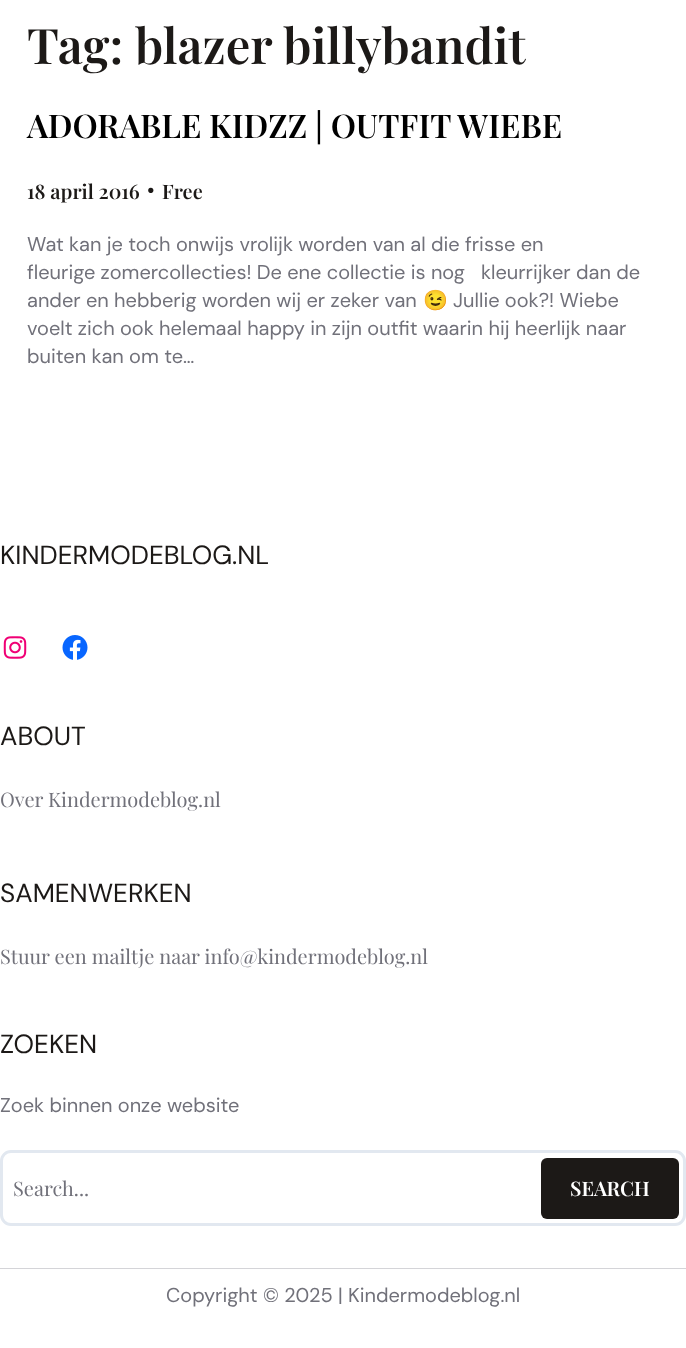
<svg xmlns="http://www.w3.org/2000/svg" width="686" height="1348">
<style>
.a{font:600 48.9px Playfair Display;fill:#1c1917}
.b{font:600 32.6px Playfair Display;fill:#000}
.c{font:600 20px Playfair Display;fill:#1c1917}
.d{font:600 20px DM Sans;fill:#1c1917}
.e{font:20px DM Sans;fill:#71717a}
.f{font:20px Noto Color Emoji;fill:#71717a}
.g{font:26.25px 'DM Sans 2';fill:#1c1917}
.h{font:20px Playfair Display;fill:#71717a}
.i{font:600 20px Playfair Display;fill:#fff}
</style>
<rect width="100%" height="100%" fill="#fff"/>
<image href="1.png" x="3" y="636" width="24" height="23"/>
<image href="2.png" x="62" y="635" width="26" height="25"/>
<rect fill="none" stroke="#e2e8f0" stroke-width="3" x="1.5" y="1151.5" width="683" height="73" rx="9.5"/>
<rect fill="#1c1917" x="541" y="1158" width="138" height="61" rx="6"/>
<path fill="#d4d4d8" d="M0 1268h686v1H0z"/>
<text class="a" x="27" y="64">Tag: blazer billybandit</text>
<text class="b" x="27" y="138">ADORABLE KIDZZ | OUTFIT WIEBE</text>
<text class="c" x="27" y="199">18 april 2016</text>
<text class="d" x="147" y="197">•</text>
<text class="c" x="162" y="199">Free</text>
<text class="e" x="27" y="251">Wat kan je toch onwijs vrolijk worden van al die frisse en</text>
<text class="e" xml:space="preserve" x="27" y="279">fleurige zomercollecties! De ene collectie is nog   kleurrijker dan de</text>
<text class="e" x="27" y="307">ander en hebberig worden wij er zeker van</text>
<text class="f" x="423" y="307">😉</text>
<text class="e" x="453" y="307">Jullie ook?! Wiebe</text>
<text class="e" x="27" y="335">voelt zich ook helemaal happy in zijn outfit waarin hij heerlijk naar</text>
<text class="e" x="27" y="363">buiten kan om te…</text>
<text class="g" x="0" y="564">KINDERMODEBLOG.NL</text>
<text class="g" x="0" y="745">ABOUT</text>
<text class="h" x="0" y="807">Over Kindermodeblog.nl</text>
<text class="g" x="0" y="902">SAMENWERKEN</text>
<text class="h" x="0" y="964">Stuur een mailtje naar info@kindermodeblog.nl</text>
<text class="g" x="0" y="1053">ZOEKEN</text>
<text class="e" x="0" y="1112">Zoek binnen onze website</text>
<text class="h" x="13" y="1196">Search...</text>
<text class="i" x="570" y="1196">SEARCH</text>
<text class="e" x="166" y="1302">Copyright © 2025 | Kindermodeblog.nl</text>
</svg>
